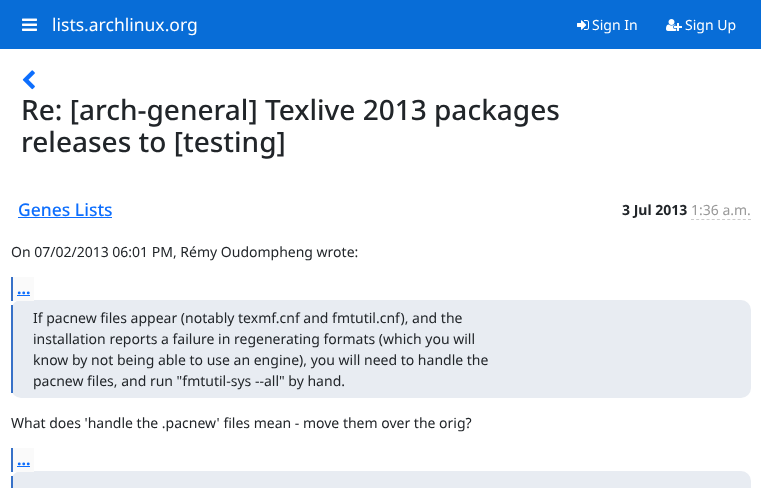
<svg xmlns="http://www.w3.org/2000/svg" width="761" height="488">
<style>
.a{font:17.5px Noto Sans;fill:#fff}
.b{font:14px Noto Sans;fill:#fff}
.c{font:500 28px Noto Sans;fill:#212529}
.d{font:500 17.5px Noto Sans;fill:#0d6efd}
.e{font:bold 14px Noto Sans;fill:#212529}
.f{font:14px Noto Sans;fill:#999}
.g{font:14px Noto Sans;fill:#212529}
.h{font:bold 16px Noto Sans;fill:#0d6efd}
</style>
<rect width="100%" height="100%" fill="#fff"/>
<path fill="#086dd7" d="M0 0h761v49H0z"/>
<image href="1.png" x="22" y="18" width="15" height="13"/>
<image href="2.png" x="577" y="20" width="12" height="10"/>
<image href="3.png" x="666" y="19" width="16" height="12"/>
<image href="4.png" x="22" y="70" width="13" height="20"/>
<path fill="#0d6efd" d="M18 217h94v1H18z"/>
<path fill="none" stroke="#ccc" stroke-dasharray="3 2.18" d="M691 219.5h60"/>
<rect fill="#e8ecf2" x="11" y="300" width="740" height="98" rx="10"/>
<path fill="#fafafa" d="M13 277h21v24H13z"/>
<path fill="#3771c8" d="M11 277h2v24H11z"/>
<path fill="#0d6efd" d="M17 295h13v1H17z"/>
<path fill="#3771c8" d="M11 305h2v88H11z"/>
<rect fill="#e8ecf2" x="11" y="471" width="740" height="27" rx="10"/>
<path fill="#fafafa" d="M13 448h21v24H13z"/>
<path fill="#3771c8" d="M11 448h2v24H11z"/>
<path fill="#0d6efd" d="M17 466h13v1H17z"/>
<path fill="#3771c8" d="M11 476h2v12H11z"/>
<text class="a" x="52" y="31">lists.archlinux.org</text>
<text class="b" x="592" y="30">Sign In</text>
<text class="b" x="685" y="30">Sign Up</text>
<text class="c" x="21" y="120">Re: [arch-general] Texlive 2013 packages</text>
<text class="c" x="21" y="152">releases to [testing]</text>
<text class="d" x="18" y="216">Genes Lists</text>
<text class="e" x="622" y="215">3 Jul 2013</text>
<text class="f" x="691" y="215">1:36 a.m.</text>
<text class="g" x="11" y="257">On 07/02/2013 06:01 PM, Rémy Oudompheng wrote:</text>
<text class="h" x="17" y="294">...</text>
<text class="g" x="33" y="323">If pacnew files appear (notably texmf.cnf and fmtutil.cnf), and the</text>
<text class="g" x="33" y="344">installation reports a failure in regenerating formats (which you will</text>
<text class="g" x="33" y="365">know by not being able to use an engine), you will need to handle the</text>
<text class="g" x="33" y="386">pacnew files, and run "fmtutil-sys --all" by hand.</text>
<text class="g" x="11" y="428">What does 'handle the .pacnew' files mean - move them over the orig?</text>
<text class="h" x="17" y="465">...</text>
</svg>
